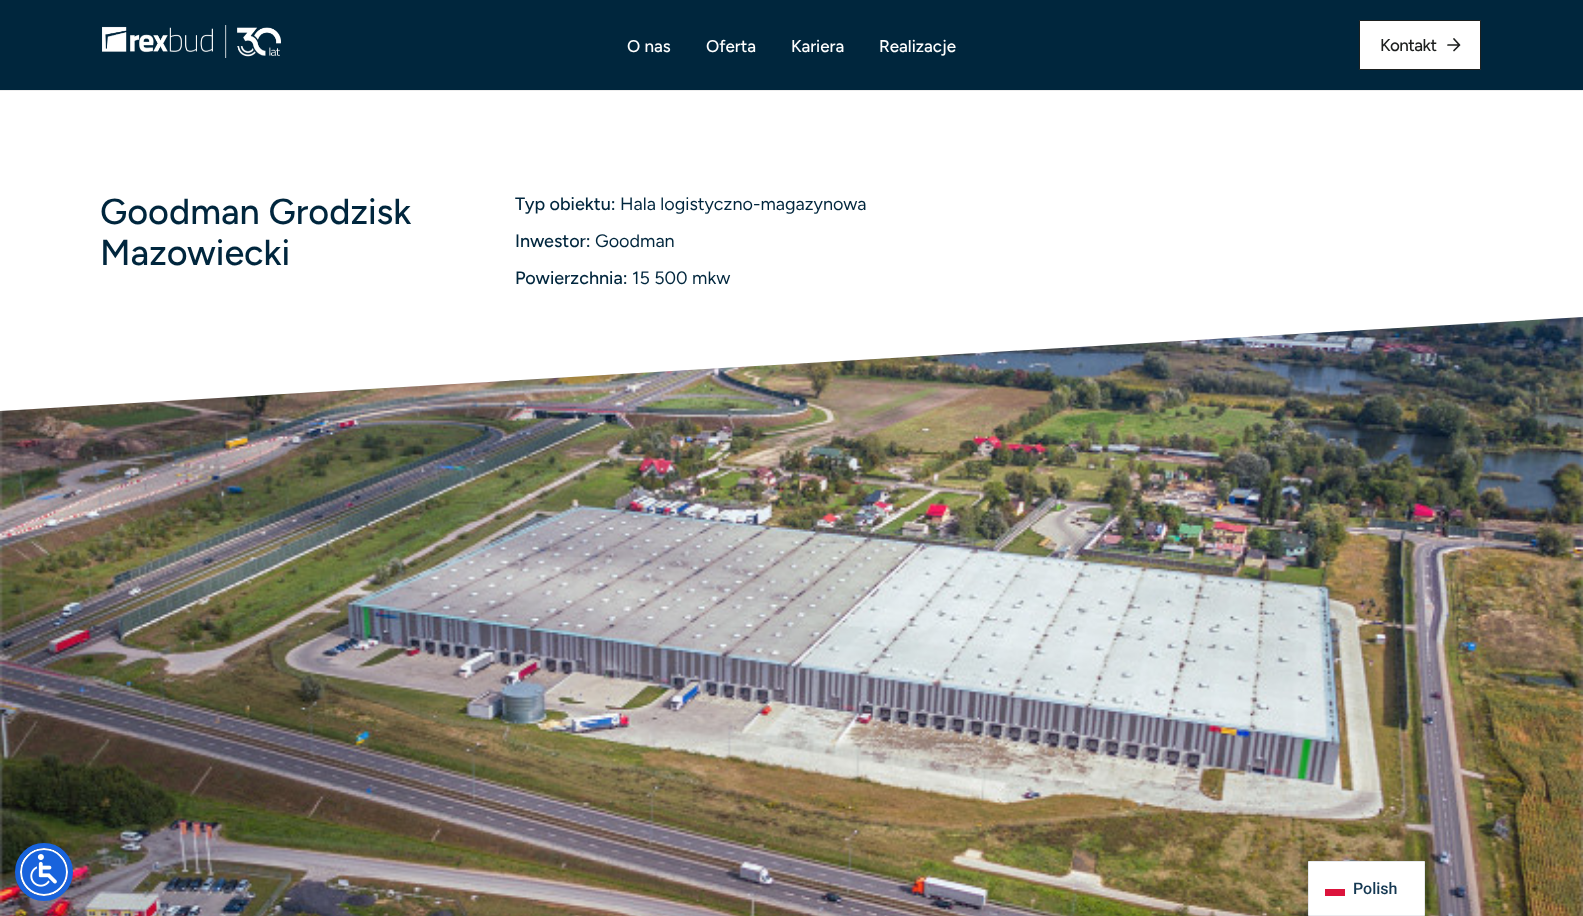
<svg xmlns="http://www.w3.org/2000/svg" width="1583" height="916">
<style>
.a{font:500 17px Figtree;fill:#fff}
.b{font:500 17px Figtree;letter-spacing:-0.5px;fill:#1d1f1e}
.c{font:500 36px Figtree;fill:#00263d}
.d{font:500 18px Figtree;fill:#00263d}
.e{font:18px Figtree;fill:#00263d}
.f{font:500 16px Roboto;fill:#143852}
</style>
<rect width="100%" height="100%" fill="#fff"/>
<path fill="#00263d" d="M0 0h1583v90H0z"/>
<path fill="#ededed" d="M0 90h1583v1H0z"/>
<image href="1.png" x="102" y="25" width="179" height="33"/>
<path fill="#fff" stroke="#1d1f1e" d="M1359.5 20.5h121v49H1359.5z"/>
<path fill="none" stroke="#1d1f1e" stroke-width="1.7" stroke-linecap="round" stroke-linejoin="round" d="M1448 45h11.5m-5.5-6l5.5 6l-5.5 5.5"/>
<image href="2.png" x="0" y="317" width="1583" height="599"/>
<path fill="#fff" d="M1583 317v-6h-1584v100z"/>
<rect fill="#5d649433" filter="blur(2px)" x="20" y="850" width="48" height="48" rx="24"/>
<rect fill="#252c6126" filter="blur(7.5px)" x="20" y="853" width="48" height="48" rx="24"/>
<circle fill="#1863dc" stroke="#fff" stroke-width="2" cx="44" cy="872" r="23"/>
<circle fill="none" stroke="#1863dc" stroke-width="5" cx="44" cy="872" r="26.5"/>
<image href="3.png" x="30" y="854" width="27" height="33"/>
<path fill="#0000001a" filter="blur(10px)" d="M1308 861h117v55H1308z"/>
<path fill="#fff" stroke="#e7e9ee" d="M1308.5 861.5h116v54H1308.5z"/>
<path fill="#dc143c" d="M1325 889h20v7H1325z"/>
<text class="a" x="627" y="52">O nas</text>
<text class="a" x="706" y="52">Oferta</text>
<text class="a" x="791" y="52">Kariera</text>
<text class="a" x="879" y="52">Realizacje</text>
<text class="b" x="1380" y="51">Kontakt</text>
<text class="c" x="100" y="224">Goodman Grodzisk</text>
<text class="c" x="100" y="265">Mazowiecki</text>
<text class="d" x="515" y="210">Typ obiektu:</text>
<text class="e" x="620" y="210">Hala logistyczno-magazynowa</text>
<text class="d" x="515" y="247">Inwestor:</text>
<text class="e" x="595" y="247">Goodman</text>
<text class="d" x="515" y="284">Powierzchnia:</text>
<text class="e" x="632" y="284">15 500 mkw</text>
<text class="f" x="1353" y="894">Polish</text>
</svg>
